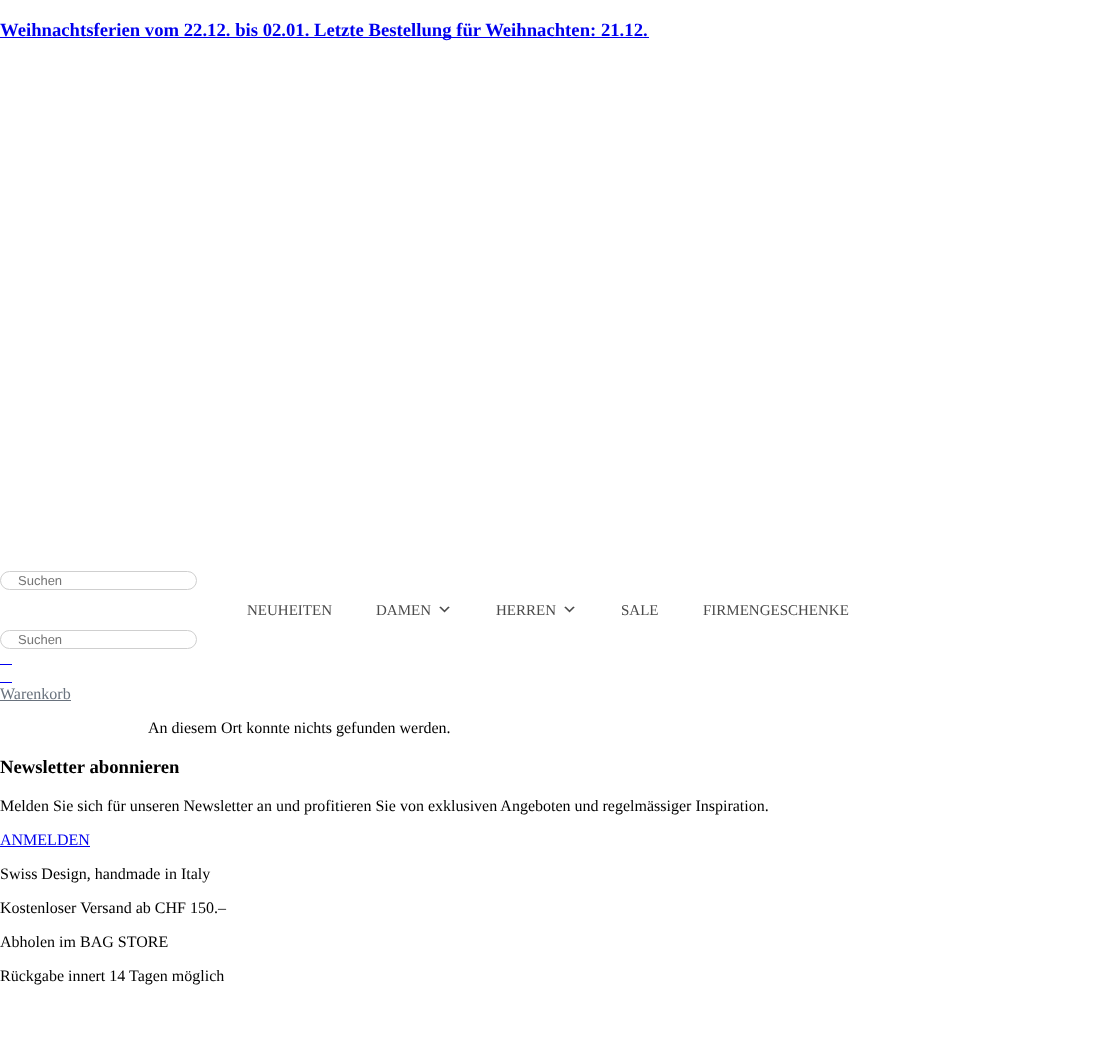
<svg xmlns="http://www.w3.org/2000/svg" width="1096" height="1044">
<style>
.a{font:bold 18.7px Liberation Serif;fill:#00e}
.b{font:13px Liberation Sans;fill:#757575}
.c{font:15px Liberation Serif;fill:#4b4b4b}
.d{font:16px Liberation Serif;fill:#69727d}
.e{font:16px Liberation Serif;fill:#000}
.f{font:bold 18.7px Liberation Serif;fill:#000}
.g{font:16px Liberation Serif;fill:#00e}
</style>
<rect width="100%" height="100%" fill="#fff"/>
<path fill="#00e" d="M0 37h649v1H0z"/>
<rect fill="none" stroke="#cfcfcf" x="0.5" y="571.5" width="196" height="18" rx="9"/>
<image href="1.png" x="439" y="606" width="11" height="7"/>
<image href="1.png" x="564" y="606" width="11" height="7"/>
<rect fill="none" stroke="#cfcfcf" x="0.5" y="630.5" width="196" height="18" rx="9"/>
<path fill="#00e" d="M0 664h12v1H0z"/>
<path fill="#00e" d="M0 682h12v1H0z"/>
<path fill="#69727d" d="M0 700h71v1H0z"/>
<path fill="#00e" d="M0 846h90v1H0z"/>
<text class="a" x="0" y="36">Weihnachtsferien vom 22.12. bis 02.01. Letzte Bestellung für Weihnachten: 21.12.</text>
<text class="b" x="18" y="585">Suchen</text>
<text class="c" x="247" y="615">NEUHEITEN</text>
<text class="c" x="376" y="615">DAMEN</text>
<text class="c" x="496" y="615">HERREN</text>
<text class="c" x="621" y="615">SALE</text>
<text class="c" x="703" y="615">FIRMENGESCHENKE</text>
<text class="b" x="18" y="644">Suchen</text>
<text class="d" x="0" y="699">Warenkorb</text>
<text class="e" x="148" y="733">An diesem Ort konnte nichts gefunden werden.</text>
<text class="f" x="0" y="773">Newsletter abonnieren</text>
<text class="e" x="0" y="811">Melden Sie sich für unseren Newsletter an und profitieren Sie von exklusiven Angeboten und regelmässiger Inspiration.</text>
<text class="g" x="0" y="845">ANMELDEN</text>
<text class="e" x="0" y="879">Swiss Design, handmade in Italy</text>
<text class="e" x="0" y="913">Kostenloser Versand ab CHF 150.–</text>
<text class="e" x="0" y="947">Abholen im BAG STORE</text>
<text class="e" x="0" y="981">Rückgabe innert 14 Tagen möglich</text>
</svg>
